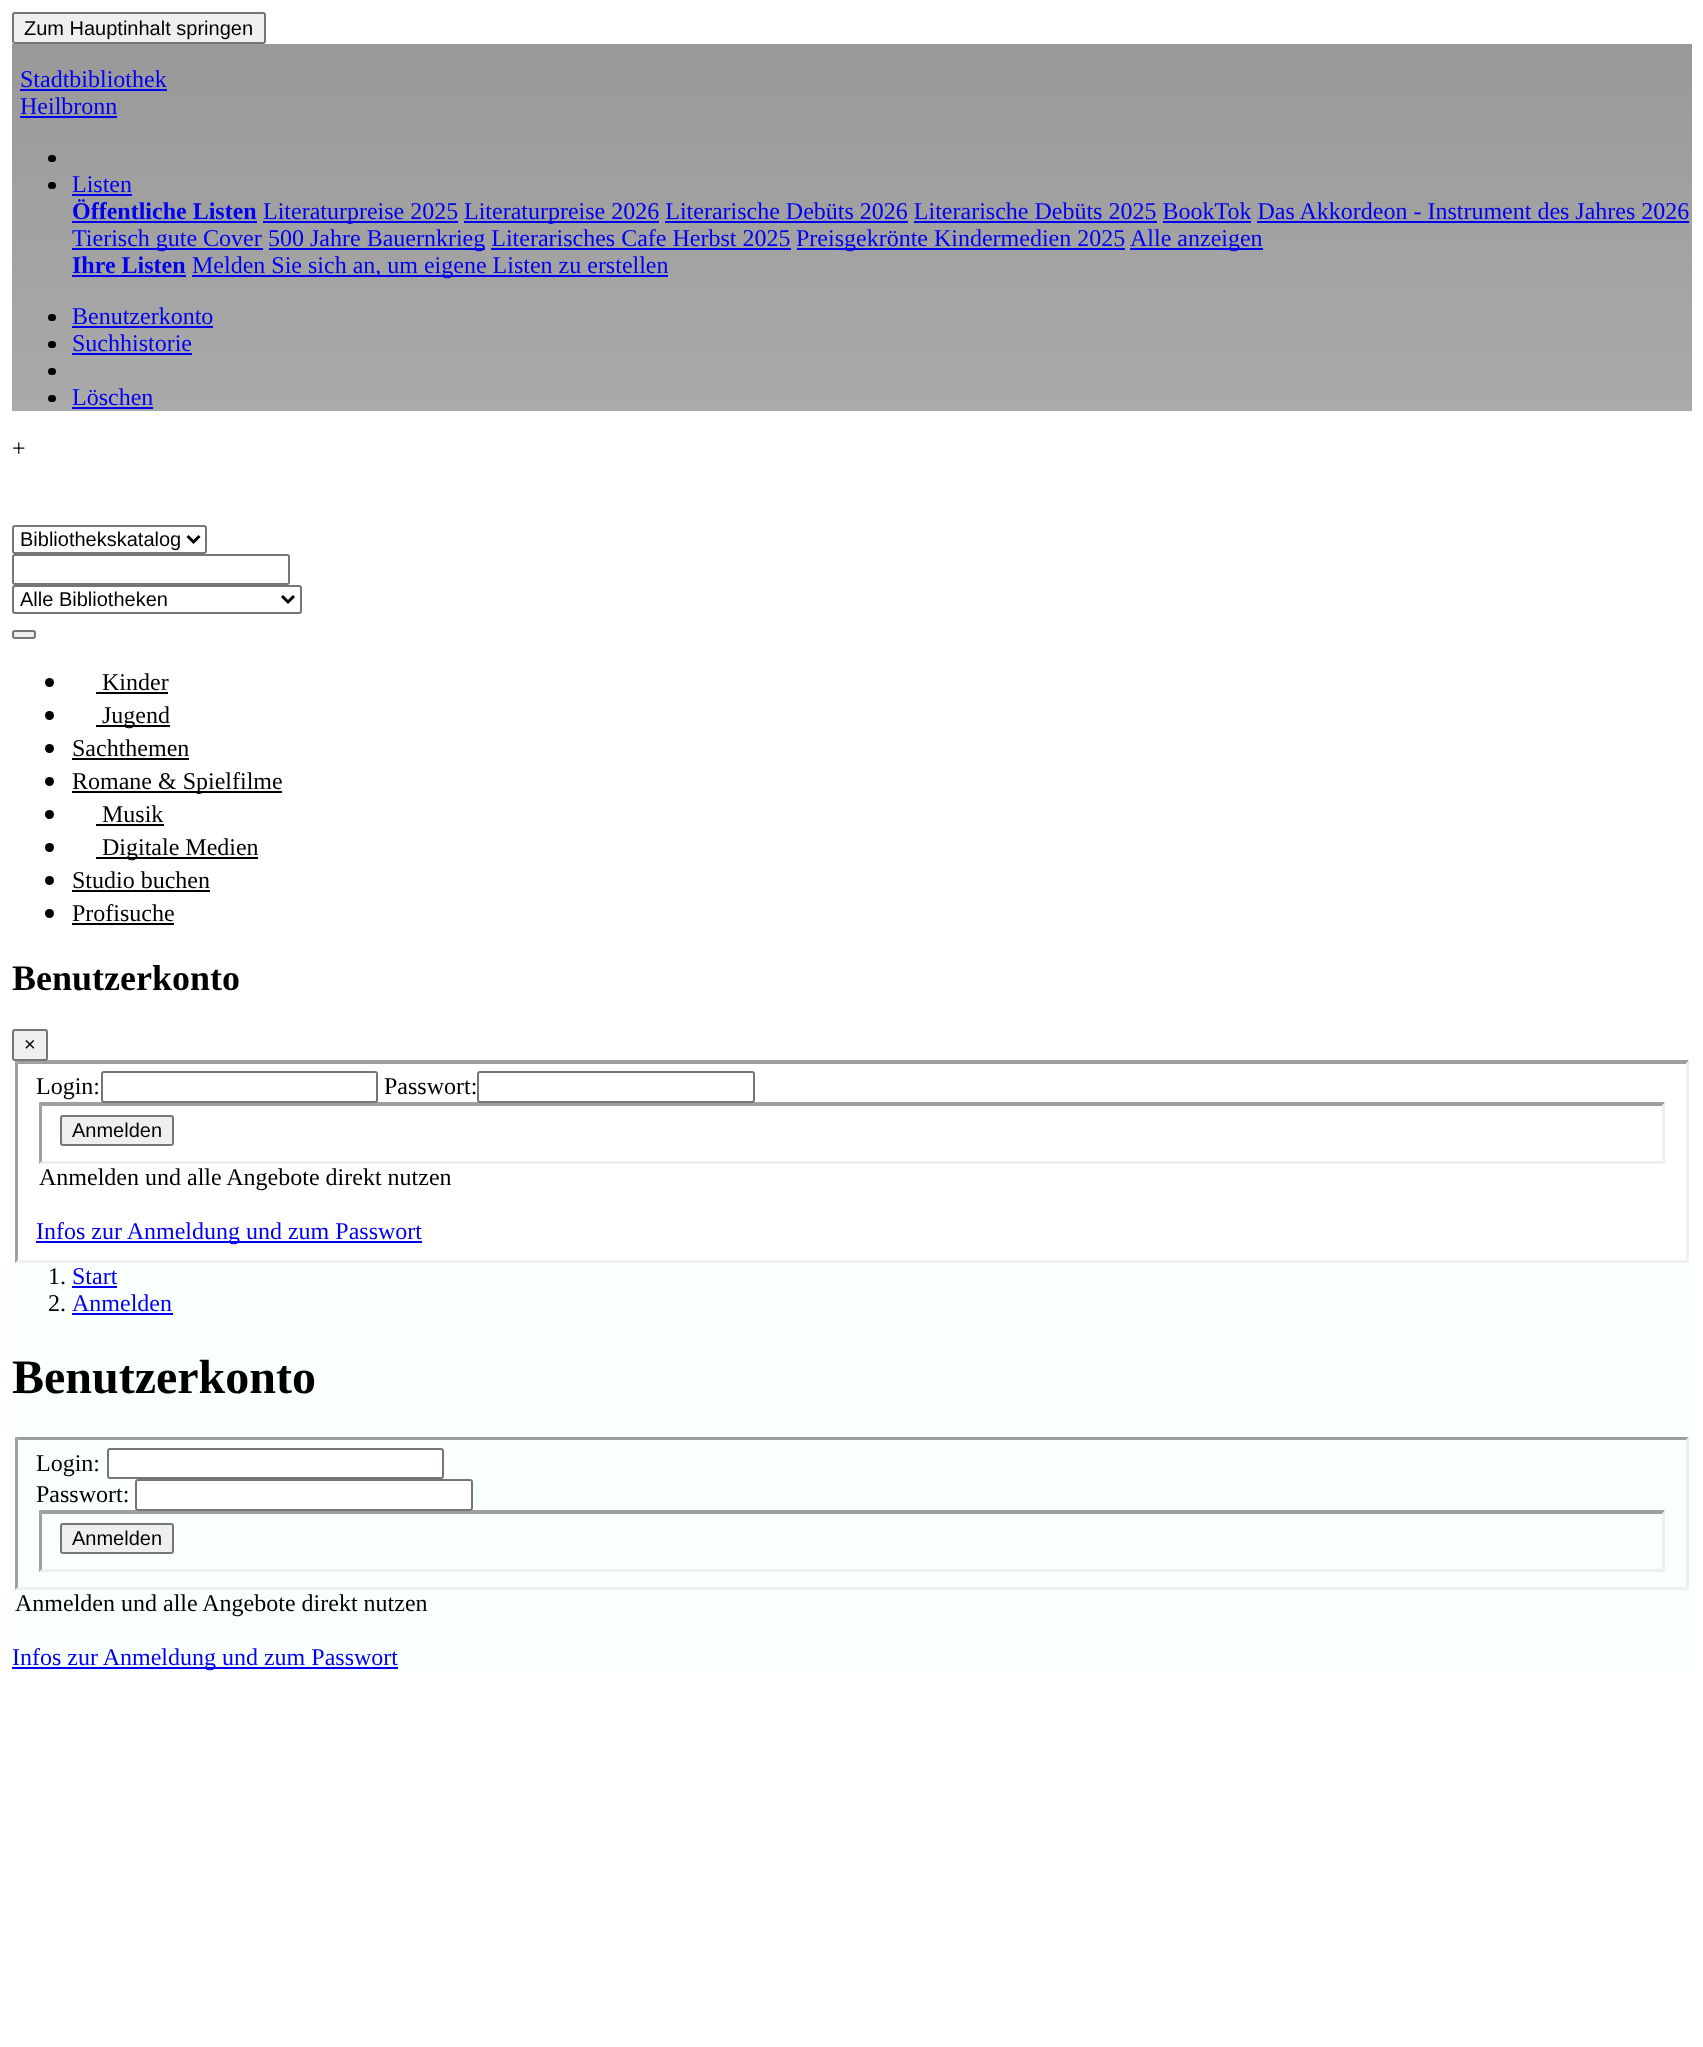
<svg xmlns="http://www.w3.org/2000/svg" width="1703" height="2047">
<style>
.a{font:20px Liberation Sans;fill:#000}
.b{font:24px Liberation Serif;fill:#00e}
.c{font:bold 24px Liberation Serif;fill:#00e}
.d{font:24px Liberation Serif;fill:#000}
.e{font:bold 36px Liberation Serif;fill:#000}
.f{font:bold 48px Liberation Serif;fill:#000}
</style>
<defs>
<linearGradient id="g1" gradientUnits="userSpaceOnUse" x1="852" y1="43" x2="852" y2="411"><stop offset="0" stop-color="#999"/><stop offset="1" stop-color="#aaa"/></linearGradient>
</defs>
<rect width="100%" height="100%" fill="#fff"/>
<rect fill="#efefef" stroke="#767676" stroke-width="2" x="13" y="13" width="252" height="30" rx="2"/>
<path fill="url(#g1)" d="M12 44h1680v367H12z"/>
<path fill="#00e" d="M20 89h147v2H20z"/>
<path fill="#00e" d="M20 116h97v2H20z"/>
<rect fill="#000" x="48" y="155" width="8" height="7" rx="3.5"/>
<rect fill="#000" x="48" y="182" width="8" height="7" rx="3.5"/>
<path fill="#00e" d="M72 194h60v2H72z"/>
<path fill="#00e" d="M72 221h185v2H72z"/>
<path fill="#00e" d="M263 221h195v2H263z"/>
<path fill="#00e" d="M464 221h195v2H464z"/>
<path fill="#00e" d="M665 221h243v2H665z"/>
<path fill="#00e" d="M914 221h243v2H914z"/>
<path fill="#00e" d="M1163 221h88v2H1163z"/>
<path fill="#00e" d="M1257 221h432v2H1257z"/>
<path fill="#00e" d="M72 248h191v2H72z"/>
<path fill="#00e" d="M269 248h216v2H269z"/>
<path fill="#00e" d="M797 248h328v2H797z"/>
<path fill="#00e" d="M1130 248h133v2H1130z"/>
<path fill="#00e" d="M491 248h300v2H491z"/>
<path fill="#00e" d="M72 275h114v2H72z"/>
<path fill="#00e" d="M192 275h476v2H192z"/>
<rect fill="#000" x="48" y="314" width="8" height="7" rx="3.5"/>
<path fill="#00e" d="M72 326h141v2H72z"/>
<rect fill="#000" x="48" y="341" width="8" height="7" rx="3.5"/>
<path fill="#00e" d="M72 353h120v2H72z"/>
<rect fill="#000" x="48" y="368" width="8" height="7" rx="3.5"/>
<rect fill="#000" x="48" y="395" width="8" height="7" rx="3.5"/>
<path fill="#00e" d="M72 407h81v2H72z"/>
<rect fill="none" stroke="#767676" stroke-width="2" x="13" y="526" width="193" height="27" rx="2"/>
<path fill="none" stroke="#000" stroke-width="3" d="M187.5 536l6 6l6-6"/>
<rect fill="none" stroke="#767676" stroke-width="2" x="13" y="555" width="276" height="29" rx="2"/>
<rect fill="none" stroke="#767676" stroke-width="2" x="13" y="586" width="288" height="27" rx="2"/>
<path fill="none" stroke="#000" stroke-width="3" d="M282 596l6 6l6-6"/>
<rect fill="#efefef" stroke="#767676" stroke-width="2" x="13" y="631" width="22" height="7" rx="2"/>
<circle fill="#000" cx="49.5" cy="682.5" r="4.5"/>
<path fill="#000" d="M96 692h72v2H96z"/>
<circle fill="#000" cx="49.5" cy="715.5" r="4.5"/>
<path fill="#000" d="M96 725h74v2H96z"/>
<circle fill="#000" cx="49.5" cy="748.5" r="4.5"/>
<path fill="#000" d="M72 758h117v2H72z"/>
<circle fill="#000" cx="49.5" cy="781.5" r="4.5"/>
<path fill="#000" d="M72 791h210v2H72z"/>
<circle fill="#000" cx="49.5" cy="814.5" r="4.5"/>
<path fill="#000" d="M96 824h68v2H96z"/>
<circle fill="#000" cx="49.5" cy="847.5" r="4.5"/>
<path fill="#000" d="M96 857h162v2H96z"/>
<circle fill="#000" cx="49.5" cy="880.5" r="4.5"/>
<path fill="#000" d="M72 890h138v2H72z"/>
<circle fill="#000" cx="49.5" cy="913.5" r="4.5"/>
<path fill="#000" d="M72 923h102v2H72z"/>
<path fill="#9f9f9f" d="M15 1060h1674l-3 4h-1668z"/>
<path fill="#efefef" d="M1689 1060v203l-3-3v-196z"/>
<path fill="#efefef" d="M1689 1263h-1674l3-3h1668z"/>
<path fill="#9f9f9f" d="M15 1263v-203l3 4v196z"/>
<rect fill="#efefef" stroke="#767676" stroke-width="2" x="13" y="1030" width="34" height="30" rx="2"/>
<path fill="#9f9f9f" d="M39 1102h1626l-3 4h-1620z"/>
<rect fill="#fff" stroke="#767676" stroke-width="2" x="102" y="1072" width="275" height="30" rx="2"/>
<rect fill="#fff" stroke="#767676" stroke-width="2" x="478" y="1072" width="276" height="30" rx="2"/>
<path fill="#efefef" d="M1665 1102v62l-3-3v-55z"/>
<path fill="#efefef" d="M1665 1164h-1626l3-3h1620z"/>
<path fill="#9f9f9f" d="M39 1164v-62l3 4v55z"/>
<rect fill="#efefef" stroke="#767676" stroke-width="2" x="61" y="1116" width="112" height="29" rx="2"/>
<path fill="#00e" d="M36 1241h386v2H36z"/>
<path fill="#faffff" d="M12 1263h1680v408H12z"/>
<path fill="#00e" d="M72 1286h45v2H72z"/>
<path fill="#00e" d="M72 1313h101v2H72z"/>
<path fill="#9f9f9f" d="M15 1437h1674l-3 3h-1668z"/>
<path fill="#efefef" d="M1689 1437v153l-3-3v-147z"/>
<path fill="#efefef" d="M1689 1590h-1674l3-3h1668z"/>
<path fill="#9f9f9f" d="M15 1590v-153l3 3v147z"/>
<rect fill="#fff" stroke="#767676" stroke-width="2" x="108" y="1449" width="335" height="29" rx="2"/>
<path fill="#9f9f9f" d="M39 1510h1626l-3 4h-1620z"/>
<rect fill="#fff" stroke="#767676" stroke-width="2" x="136" y="1480" width="336" height="30" rx="2"/>
<path fill="#efefef" d="M1665 1510v62l-3-3v-55z"/>
<path fill="#efefef" d="M1665 1572h-1626l3-3h1620z"/>
<path fill="#9f9f9f" d="M39 1572v-62l3 4v55z"/>
<rect fill="#efefef" stroke="#767676" stroke-width="2" x="61" y="1524" width="112" height="29" rx="2"/>
<path fill="#00e" d="M12 1667h386v2H12z"/>
<text class="a" x="24" y="35">Zum Hauptinhalt springen</text>
<text class="b" x="20" y="87">Stadtbibliothek</text>
<text class="b" x="20" y="114">Heilbronn</text>
<text class="b" x="72" y="192">Listen</text>
<text class="c" x="72" y="219">Öffentliche Listen</text>
<text class="b" x="263" y="219">Literaturpreise 2025</text>
<text class="b" x="464" y="219">Literaturpreise 2026 Literarische Debüts 2026 Literarische Debüts 2025 BookTok Das Akkordeon - Instrument des Jahres 2026</text>
<text class="b" x="72" y="246">Tierisch gute Cover</text>
<text class="b" x="268" y="246">500 Jahre Bauernkrieg Literarisches Cafe Herbst 2025</text>
<text class="b" x="796" y="246">Preisgekrönte Kindermedien 2025</text>
<text class="b" x="1130" y="246">Alle anzeigen</text>
<text class="c" x="72" y="273">Ihre Listen</text>
<text class="b" x="192" y="273">Melden Sie sich an, um eigene Listen zu erstellen</text>
<text class="b" x="72" y="324">Benutzerkonto</text>
<text class="b" x="72" y="351">Suchhistorie</text>
<text class="b" x="72" y="405">Löschen</text>
<text class="d" x="12" y="456">+</text>
<text class="a" x="20" y="546">Bibliothekskatalog</text>
<text class="a" x="20" y="606">Alle Bibliotheken</text>
<text class="d" x="102" y="690">Kinder</text>
<text class="d" x="102" y="723">Jugend</text>
<text class="d" x="72" y="756">Sachthemen</text>
<text class="d" x="72" y="789">Romane &amp; Spielfilme</text>
<text class="d" x="102" y="822">Musik</text>
<text class="d" x="102" y="855">Digitale Medien</text>
<text class="d" x="72" y="888">Studio buchen</text>
<text class="d" x="72" y="921">Profisuche</text>
<text class="e" x="12" y="990">Benutzerkonto</text>
<text class="a" x="24" y="1051">×</text>
<text class="d" x="36" y="1094">Login:</text>
<text class="d" x="384" y="1094">Passwort:</text>
<text class="a" x="72" y="1137">Anmelden</text>
<text class="d" x="39" y="1185">Anmelden und alle Angebote direkt nutzen</text>
<text class="b" x="36" y="1239">Infos zur Anmeldung und zum Passwort</text>
<text class="d" x="48" y="1284">1.</text>
<text class="b" x="72" y="1284">Start</text>
<text class="d" x="48" y="1311">2.</text>
<text class="b" x="72" y="1311">Anmelden</text>
<text class="f" x="12" y="1393">Benutzerkonto</text>
<text class="d" x="36" y="1471">Login:</text>
<text class="d" x="36" y="1502">Passwort:</text>
<text class="a" x="72" y="1545">Anmelden</text>
<text class="d" x="15" y="1611">Anmelden und alle Angebote direkt nutzen</text>
<text class="b" x="12" y="1665">Infos zur Anmeldung und zum Passwort</text>
</svg>
